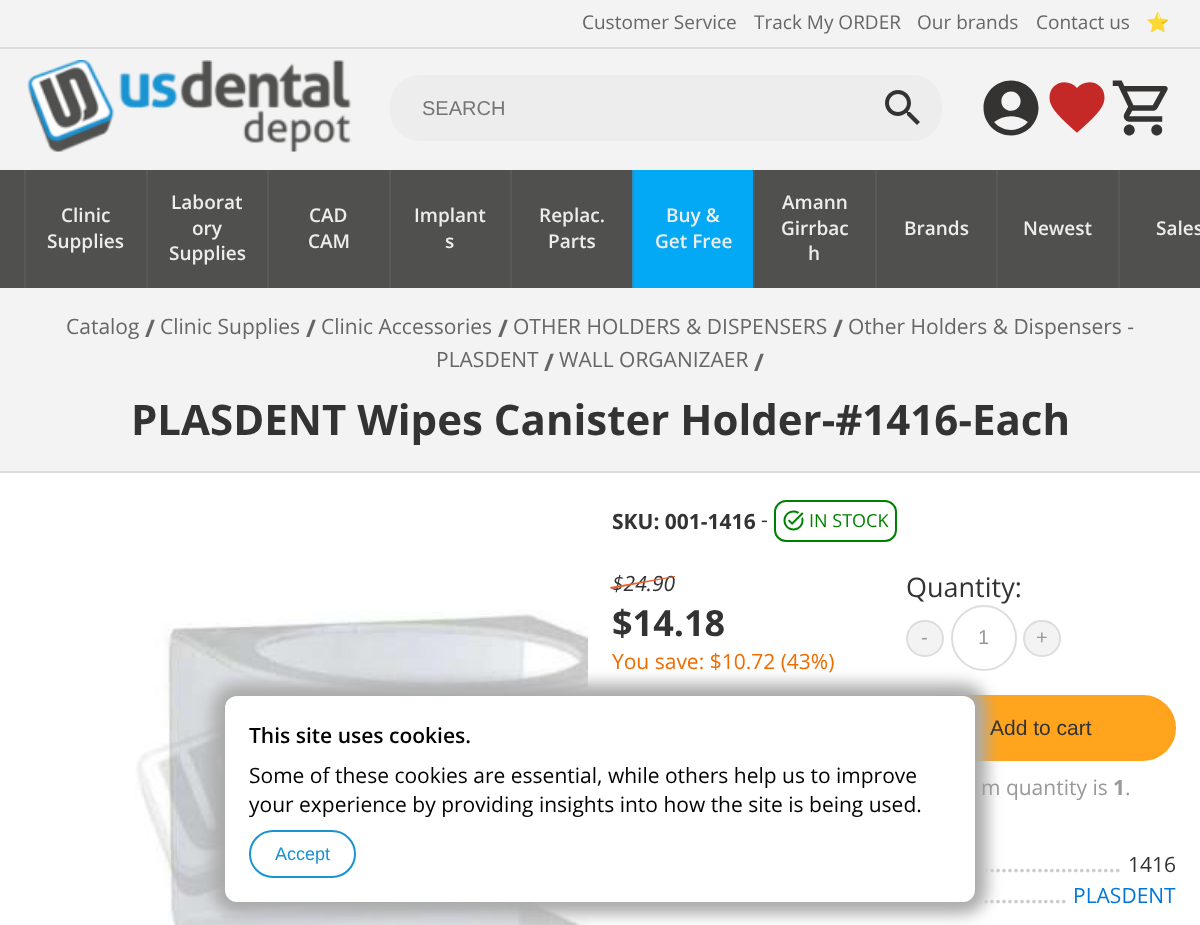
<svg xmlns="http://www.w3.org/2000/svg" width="1200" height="925">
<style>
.a{font:19px Open Sans;fill:#666}
.b{font:19px Noto Color Emoji;fill:#666}
.c{font:20px Liberation Sans;fill:#757575}
.d{font:600 19px Open Sans;fill:#ededed}
.e{font:21px Open Sans;fill:#666}
.f{font:bold 24px Open Sans;fill:#666}
.g{font:bold 42px Open Sans;fill:#333}
.h{font:bold 21px Open Sans;fill:#333}
.i{font:21px Open Sans;fill:#333}
.j{font:18px Open Sans;fill:#008000}
.k{font:italic 21px Open Sans;fill:#333}
.l{font:bold 36px Open Sans;fill:#333}
.m{font:21px Open Sans;fill:#ef6c00}
.n{font:27px Open Sans;fill:#333}
.o{font:20px Liberation Sans;fill:#999}
.p{font:21px Liberation Sans;fill:#333}
.q{font:21px Open Sans;fill:#999}
.r{font:bold 21px Open Sans;fill:#999}
.s{font:bold 21px Open Sans;fill:#ccc}
.t{font:21px Open Sans;fill:#0078d7}
.u{font:600 21px Open Sans;fill:#000}
.v{font:21px Open Sans;fill:#000}
.w{font:18px Liberation Sans;fill:#1993d2}
</style>
<rect width="100%" height="100%" fill="#f3f3f3"/>
<path fill="#ddd" d="M0 47h1200v2H0z"/>
<image href="1.png" x="27" y="60" width="325" height="92"/>
<rect fill="#ededed" x="390" y="75" width="552" height="66" rx="30"/>
<image href="2.png" x="885" y="90" width="35" height="35"/>
<image href="3.png" x="983" y="80" width="56" height="56"/>
<image href="4.png" x="1049" y="82" width="56" height="51"/>
<image href="5.png" x="1112" y="80" width="56" height="56"/>
<path fill="#50504f" d="M0 170h1200v118H0z"/>
<path fill="#595958" d="M24 170h2v118H24z"/>
<path fill="#595958" d="M146 170h2v118H146z"/>
<path fill="#595958" d="M267 170h2v118H267z"/>
<path fill="#595958" d="M389 170h2v118H389z"/>
<path fill="#595958" d="M510 170h2v118H510z"/>
<path fill="#03a9f4" d="M634 170h119v118H634z"/>
<path fill="#2b8ebb" d="M632 170h2v118H632z"/>
<path fill="#595958" d="M753 170h2v118H753z"/>
<path fill="#595958" d="M875 170h2v118H875z"/>
<path fill="#595958" d="M996 170h2v118H996z"/>
<path fill="#595958" d="M1118 170h2v118H1118z"/>
<path fill="#ddd" d="M0 471h1200v2H0z"/>
<path fill="#fff" d="M0 473h1200v452H0z"/>
<image href="6.png" x="135" y="610" width="453" height="315"/>
<rect fill="none" stroke="#008000" stroke-width="2" x="775" y="501" width="121" height="40" rx="11"/>
<image href="7.png" x="783" y="510" width="21" height="21"/>
<rect fill="#f3f3f3" stroke="#ddd" stroke-width="2" x="907" y="621" width="36" height="35" rx="17.5"/>
<circle fill="none" stroke="#ddd" stroke-width="2" cx="984" cy="638" r="32"/>
<rect fill="#f3f3f3" stroke="#ddd" stroke-width="2" x="1024" y="621" width="36" height="35" rx="17.5"/>
<rect fill="#ffa41c" stroke="#ffa41c" stroke-width="2" x="907" y="696" width="268" height="64" rx="32"/>
<rect fill="#aaa" filter="blur(7.5px)" x="213" y="684" width="774" height="230" rx="24"/>
<rect fill="#fff" x="225" y="696" width="750" height="206" rx="12"/>
<rect fill="none" stroke="#1993d2" stroke-width="2" x="250" y="831" width="105" height="46" rx="23"/>
<text class="a" x="582" y="29">Customer Service</text>
<text class="a" x="754" y="29">Track My ORDER</text>
<text class="a" x="917" y="29">Our brands</text>
<text class="a" x="1036" y="29">Contact us</text>
<text class="b" x="1146" y="29">⭐</text>
<text class="c" x="422" y="115">SEARCH</text>
<text class="d" x="61" y="222">Clinic</text>
<text class="d" x="47" y="248">Supplies</text>
<text class="d" x="171" y="209">Laborat</text>
<text class="d" x="192" y="235">ory</text>
<text class="d" x="169" y="260">Supplies</text>
<text class="d" x="309" y="222">CAD</text>
<text class="d" x="308" y="248">CAM</text>
<text class="d" x="414" y="222">Implant</text>
<text class="d" x="445" y="248">s</text>
<text class="d" x="539" y="222">Replac.</text>
<text class="d" x="548" y="248">Parts</text>
<text class="d" x="666" y="222">Buy &amp;</text>
<text class="d" x="655" y="248">Get Free</text>
<text class="d" x="782" y="209">Amann</text>
<text class="d" x="781" y="235">Girrbac</text>
<text class="d" x="808" y="260">h</text>
<text class="d" x="904" y="235">Brands</text>
<text class="d" x="1023" y="235">Newest</text>
<text class="d" x="1156" y="235">Sales</text>
<text class="e" x="66" y="334">Catalog</text>
<text class="f" x="145" y="337">/</text>
<text class="e" x="160" y="334">Clinic Supplies</text>
<text class="f" x="306" y="337">/</text>
<text class="e" x="321" y="334">Clinic Accessories</text>
<text class="f" x="498" y="337">/</text>
<text class="e" x="513" y="334">OTHER HOLDERS &amp; DISPENSERS</text>
<text class="f" x="833" y="337">/</text>
<text class="e" x="848" y="334">Other Holders &amp; Dispensers -</text>
<text class="e" x="436" y="367">PLASDENT</text>
<text class="f" x="544" y="371">/</text>
<text class="e" x="559" y="367">WALL ORGANIZAER</text>
<text class="f" x="754" y="371">/</text>
<text class="g" x="131" y="435">PLASDENT Wipes Canister Holder-#1416-Each</text>
<text class="h" x="612" y="529">SKU: 001-1416</text>
<text class="i" x="761" y="527">-</text>
<text class="j" x="809" y="527">IN STOCK</text>
<text class="k" x="612" y="591">$24.90</text>
<path fill="#ed5f2b" d="M610 587l65-11v1l-64 12z"/>
<text class="l" x="612" y="636">$14.18</text>
<text class="m" x="612" y="669">You save: $10.72 (43%)</text>
<text class="n" x="906" y="597">Quantity:</text>
<text class="o" x="921" y="644">-</text>
<text class="o" x="978" y="644">1</text>
<text class="o" x="1036" y="644">+</text>
<text class="p" x="990" y="735">Add to cart</text>
<text class="q" x="981" y="795">m quantity is</text>
<text class="r" x="1113" y="795">1</text>
<text class="q" x="1125" y="795">.</text>
<text class="s" x="983" y="872">.......................</text>
<text class="i" x="1128" y="872">1416</text>
<text class="s" x="977" y="903">...............</text>
<text class="t" x="1073" y="903">PLASDENT</text>
<text class="u" x="249" y="743">This site uses cookies.</text>
<text class="v" x="249" y="783">Some of these cookies are essential, while others help us to improve</text>
<text class="v" x="249" y="812">your experience by providing insights into how the site is being used.</text>
<text class="w" x="275" y="860">Accept</text>
</svg>
